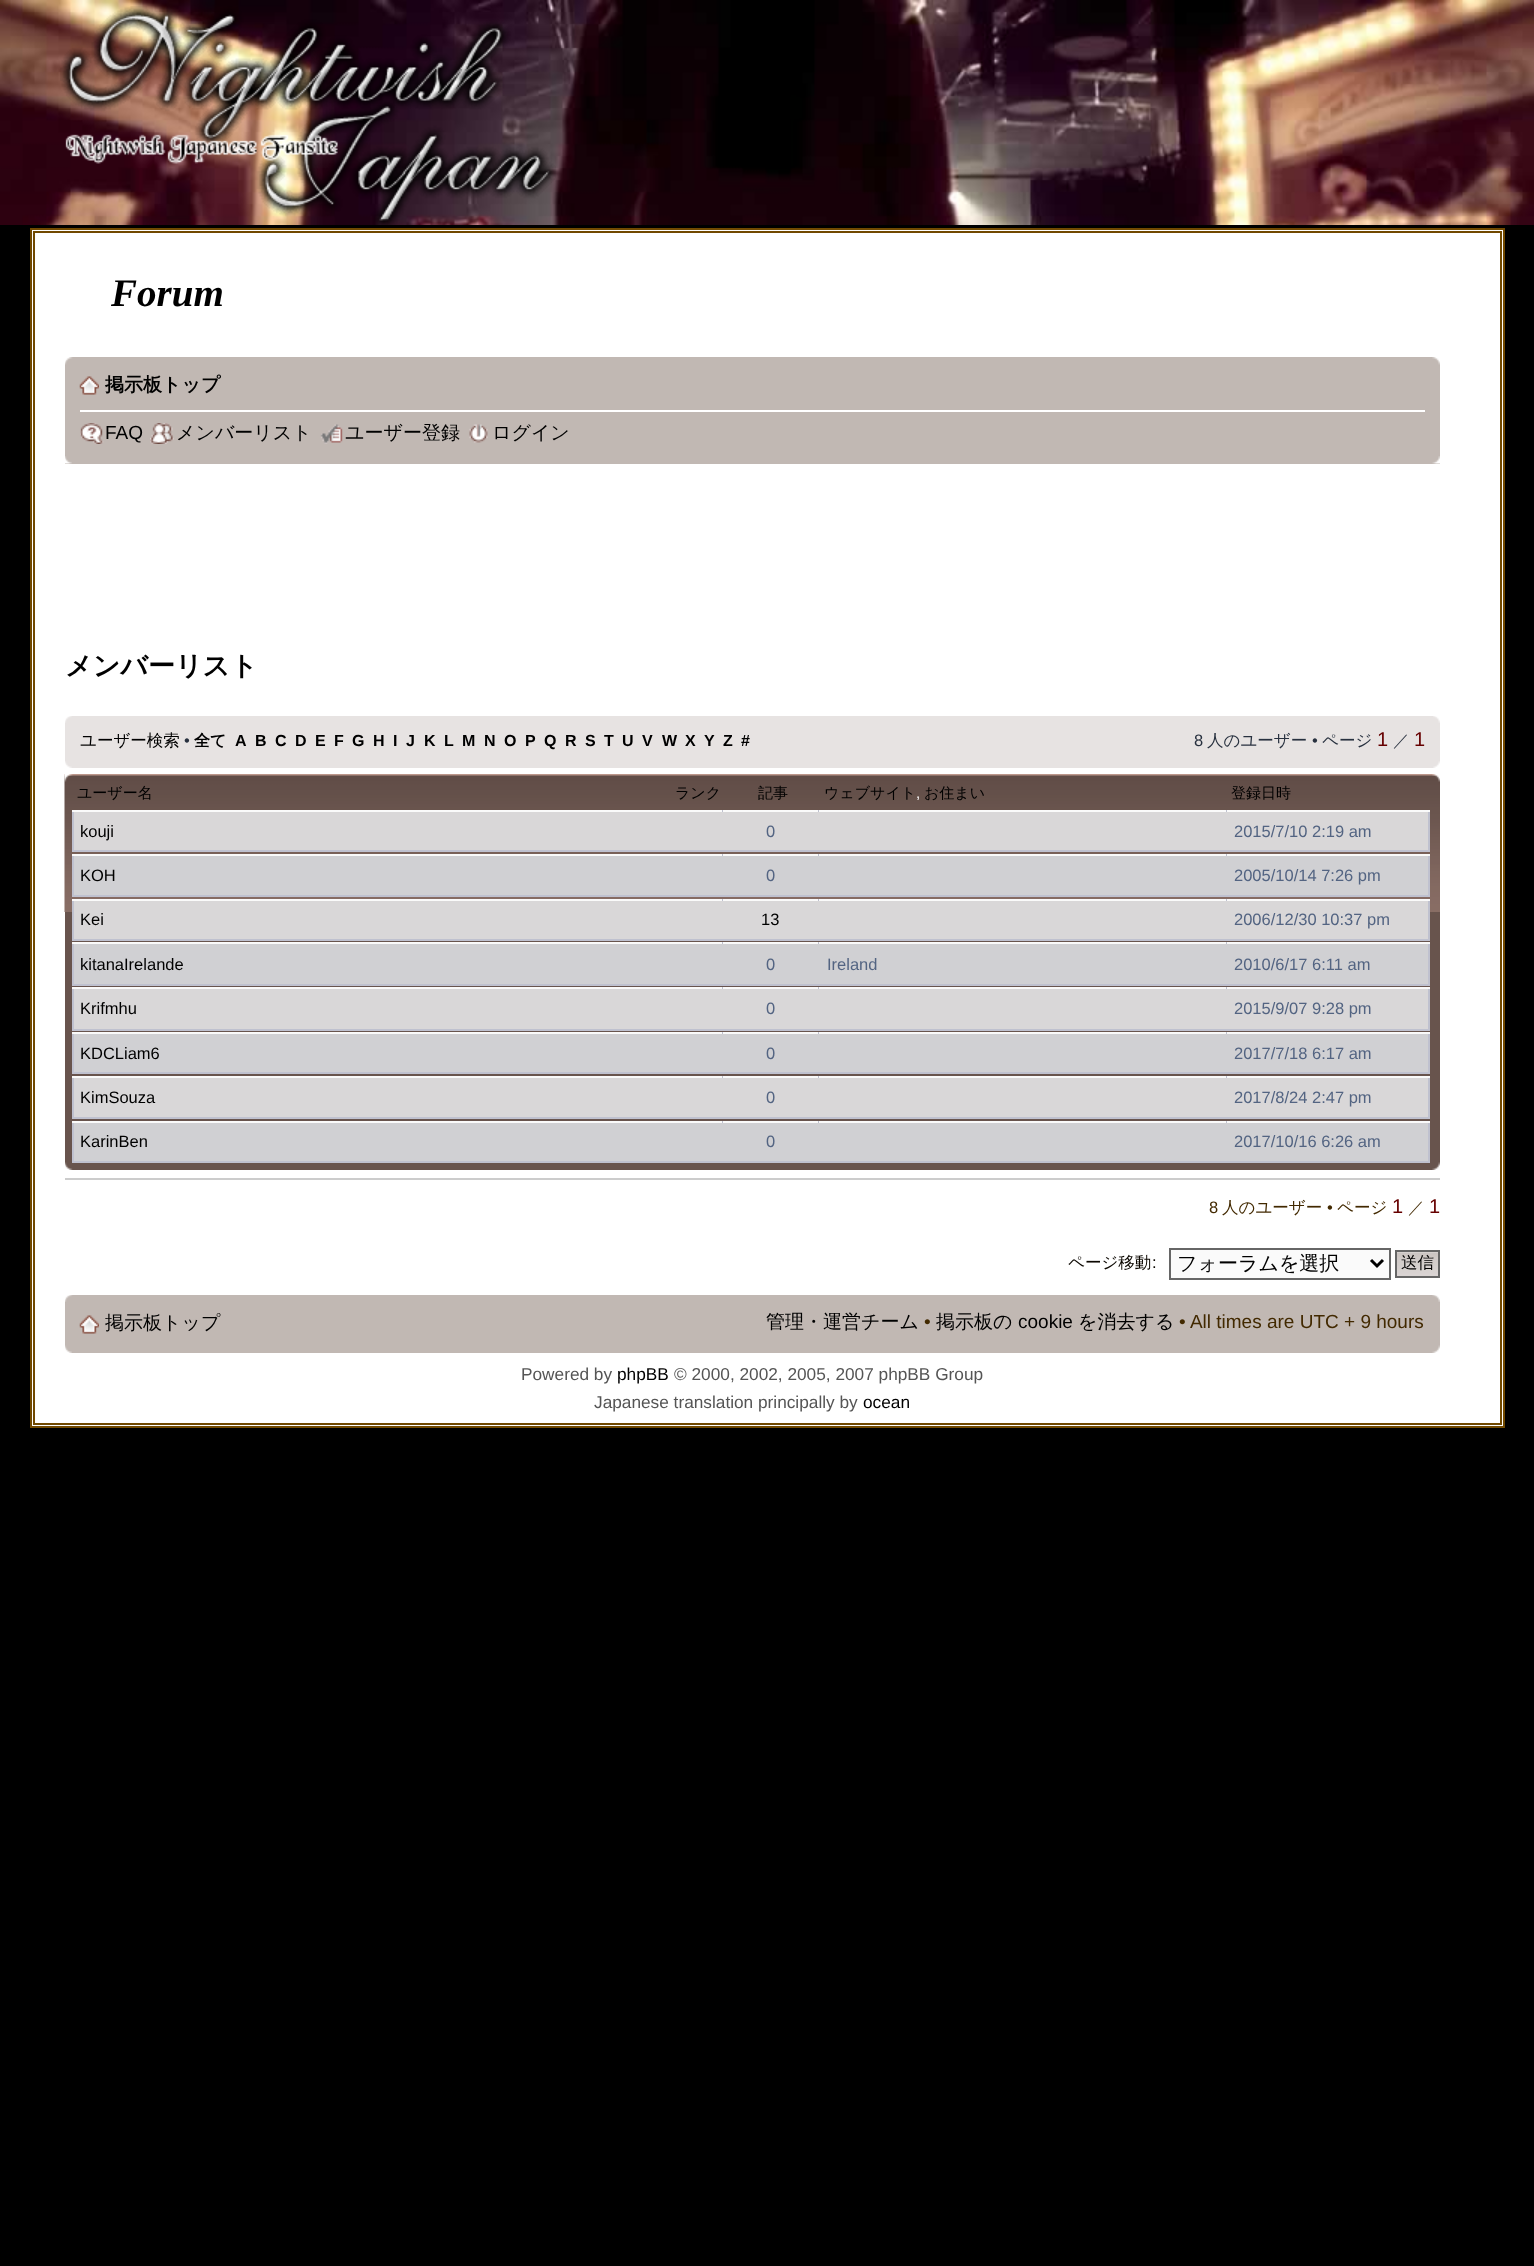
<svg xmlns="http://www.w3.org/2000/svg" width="1534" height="2266">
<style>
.a{font:italic bold 39px Liberation Serif;fill:#000}
.b{font:bold 19px WenQuanYi Zen Hei;fill:#000}
.c{font:19px Liberation Sans;fill:#000}
.d{font:500 19px WenQuanYi Zen Hei;fill:#000}
.e{font:bold 27px WenQuanYi Zen Hei;fill:#000}
.f{font:500 16.5px WenQuanYi Zen Hei;fill:#000}
.g{font:16.5px Liberation Sans;fill:#28313f}
.h{font:bold 16px WenQuanYi Zen Hei;fill:#000}
.i{font:bold 16px Liberation Sans;fill:#000}
.j{font:500 16.5px WenQuanYi Zen Hei;fill:#28313f}
.k{font:20px Liberation Sans;fill:#600}
.l{font:500 15px WenQuanYi Zen Hei;fill:#000}
.m{font:15px Liberation Sans;fill:#fff}
.n{font:16.5px Liberation Sans;fill:#000}
.o{font:16.5px Liberation Sans;fill:#536482}
.p{font:16.5px Liberation Sans;fill:#422900}
.q{font:500 16.5px WenQuanYi Zen Hei;fill:#422900}
.r{font:500 16.5px WenQuanYi Zen Hei;fill:#0b0700}
.s{font:16.5px Liberation Sans;fill:#0b0700}
.t{font:500 20px WenQuanYi Zen Hei;fill:#000}
.u{font:19px Liberation Sans;fill:#422900}
.v{font:17.25px Liberation Sans;fill:#555}
.w{font:17.25px Liberation Sans;fill:#000}
</style>
<rect width="100%" height="100%" fill="#000"/>
<image href="1.png" x="0" y="0" width="1534" height="225"/>
<image href="2.png" x="60" y="6" width="496" height="219"/>
<path fill="#fff" stroke="#714900" stroke-width="2" d="M31 229h1473v1198H31z"/>
<path fill="none" stroke="#714900" stroke-width="2" d="M34 232h1467v1192H34z"/>
<path fill="#c1b8b3" d="M65 357h1375v107H65z"/>
<image href="3.png" x="65" y="357" width="8" height="8"/>
<image href="4.png" x="1432" y="357" width="8" height="8"/>
<path fill="#fff" d="M80 410h1345v2H80z"/>
<image href="5.png" x="79" y="376" width="20" height="19"/>
<image href="6.png" x="80" y="423" width="24" height="21"/>
<image href="7.png" x="150" y="423" width="24" height="21"/>
<image href="8.png" x="320" y="424" width="23" height="20"/>
<image href="9.png" x="469" y="424" width="19" height="19"/>
<image href="10.png" x="65" y="456" width="7" height="8"/>
<image href="11.png" x="1432" y="456" width="8" height="8"/>
<path fill="#e7e3e2" d="M65 716h1375v52H65z"/>
<image href="12.png" x="65" y="716" width="7" height="7"/>
<image href="13.png" x="1433" y="716" width="7" height="7"/>
<image href="14.png" x="65" y="761" width="7" height="7"/>
<image href="15.png" x="1433" y="761" width="7" height="7"/>
<path fill="#68544d" d="M65 912h1375v258H65z"/>
<image href="16.png" x="64" y="774" width="1376" height="138"/>
<image href="17.png" x="64" y="774" width="9" height="8"/>
<image href="18.png" x="1432" y="774" width="8" height="8"/>
<path fill="#d9d7d8" stroke="#bfc1cf" stroke-width="2" d="M73 811h1356v40H73z"/>
<path fill="#fafafa" d="M819 810h407v2H819z"/>
<path fill="#fafafa" d="M72 810h650v2H72z"/>
<path fill="#fafafa" d="M723 810h95v2H723z"/>
<path fill="#fafafa" d="M1227 810h203v2H1227z"/>
<path fill="#d0d0d3" stroke="#bfc1cf" stroke-width="2" d="M73 855h1356v41H73z"/>
<path fill="#fafafa" d="M819 854h407v2H819z"/>
<path fill="#fafafa" d="M72 854h650v2H72z"/>
<path fill="#fafafa" d="M723 854h95v2H723z"/>
<path fill="#fafafa" d="M1227 854h203v2H1227z"/>
<path fill="#d9d7d8" stroke="#bfc1cf" stroke-width="2" d="M73 900h1356v40H73z"/>
<path fill="#fafafa" d="M819 899h407v2H819z"/>
<path fill="#fafafa" d="M72 899h650v2H72z"/>
<path fill="#fafafa" d="M723 899h95v2H723z"/>
<path fill="#fafafa" d="M1227 899h203v2H1227z"/>
<path fill="#d0d0d3" stroke="#bfc1cf" stroke-width="2" d="M73 943h1356v42H73z"/>
<path fill="#fafafa" d="M72 942h650v2H72z"/>
<path fill="#fafafa" d="M723 942h95v2H723z"/>
<path fill="#fafafa" d="M819 942h407v2H819z"/>
<path fill="#fafafa" d="M1227 942h203v2H1227z"/>
<path fill="#d9d7d8" stroke="#bfc1cf" stroke-width="2" d="M73 988h1356v42H73z"/>
<path fill="#fafafa" d="M819 987h407v2H819z"/>
<path fill="#fafafa" d="M72 987h650v2H72z"/>
<path fill="#fafafa" d="M723 987h95v2H723z"/>
<path fill="#fafafa" d="M1227 987h203v2H1227z"/>
<path fill="#d0d0d3" stroke="#bfc1cf" stroke-width="2" d="M73 1033h1356v40H73z"/>
<path fill="#fafafa" d="M819 1032h407v2H819z"/>
<path fill="#fafafa" d="M72 1032h650v2H72z"/>
<path fill="#fafafa" d="M723 1032h95v2H723z"/>
<path fill="#fafafa" d="M1227 1032h203v2H1227z"/>
<path fill="#d9d7d8" stroke="#bfc1cf" stroke-width="2" d="M73 1077h1356v41H73z"/>
<path fill="#fafafa" d="M819 1076h407v2H819z"/>
<path fill="#fafafa" d="M72 1076h650v2H72z"/>
<path fill="#fafafa" d="M723 1076h95v2H723z"/>
<path fill="#fafafa" d="M1227 1076h203v2H1227z"/>
<path fill="#d0d0d3" stroke="#bfc1cf" stroke-width="2" d="M73 1122h1356v40H73z"/>
<path fill="#fafafa" d="M819 1121h407v2H819z"/>
<path fill="#fafafa" d="M72 1121h650v2H72z"/>
<path fill="#fafafa" d="M723 1121h95v2H723z"/>
<path fill="#fafafa" d="M1227 1121h203v2H1227z"/>
<image href="19.png" x="65" y="1162" width="8" height="8"/>
<image href="20.png" x="1432" y="1162" width="8" height="8"/>
<path fill="#ccc" d="M65 1178h1375v2H65z"/>
<path fill="#fafafa" stroke="#666" stroke-width="2" d="M1170 1249h220v30H1170z"/>
<path fill="none" stroke="#000" stroke-width="3" d="M1371 1260l6 6l6-6"/>
<image href="21.png" x="1397" y="1252" width="41" height="24"/>
<path fill="none" stroke="#666" stroke-width="2" d="M1396 1251h43v26H1396z"/>
<path fill="#c1b8b3" d="M65 1295h1375v58H65z"/>
<image href="22.png" x="65" y="1295" width="8" height="7"/>
<image href="23.png" x="1432" y="1295" width="8" height="7"/>
<image href="5.png" x="79" y="1315" width="20" height="19"/>
<image href="24.png" x="65" y="1345" width="7" height="8"/>
<image href="25.png" x="1432" y="1345" width="8" height="8"/>
<text class="a" x="111" y="306">Forum</text>
<text class="b" x="105" y="391">掲示板トップ</text>
<text class="c" x="105" y="439">FAQ</text>
<text class="d" x="176" y="439">メンバーリスト</text>
<text class="d" x="345" y="439">ユーザー登録</text>
<text class="d" x="492" y="439">ログイン</text>
<text class="e" x="65" y="675">メンバーリスト</text>
<text class="f" x="80" y="746">ユーザー検索</text>
<text class="g" x="184" y="746">•</text>
<text class="h" x="194" y="746">全て</text>
<text class="i" x="235" y="746">A</text>
<text class="i" x="255" y="746">B</text>
<text class="i" x="275" y="746">C</text>
<text class="i" x="295" y="746">D</text>
<text class="i" x="315" y="746">E</text>
<text class="i" x="334" y="746">F</text>
<text class="i" x="352" y="746">G</text>
<text class="i" x="373" y="746">H</text>
<text class="i" x="393" y="746">I</text>
<text class="i" x="406" y="746">J</text>
<text class="i" x="424" y="746">K</text>
<text class="i" x="444" y="746">L</text>
<text class="i" x="462" y="746">M</text>
<text class="i" x="484" y="746">N</text>
<text class="i" x="504" y="746">O</text>
<text class="i" x="525" y="746">P</text>
<text class="i" x="544" y="746">Q</text>
<text class="i" x="565" y="746">R</text>
<text class="i" x="585" y="746">S</text>
<text class="i" x="604" y="746">T</text>
<text class="i" x="622" y="746">U</text>
<text class="i" x="642" y="746">V</text>
<text class="i" x="662" y="746">W</text>
<text class="i" x="685" y="746">X</text>
<text class="i" x="704" y="746">Y</text>
<text class="i" x="723" y="746">Z</text>
<text class="i" x="741" y="746">#</text>
<text class="g" x="1194" y="746">8</text>
<text class="j" x="1207" y="746">人のユーザー</text>
<text class="g" x="1312" y="746">•</text>
<text class="j" x="1322" y="746">ページ</text>
<text class="k" x="1377" y="746">1</text>
<text class="j" x="1393" y="746">／</text>
<text class="k" x="1414" y="746">1</text>
<text class="l" x="77" y="798">ユーザー名</text>
<text class="l" x="675" y="798">ランク</text>
<text class="l" x="758" y="798">記事</text>
<text class="l" x="824" y="798">ウェブサイト</text>
<text class="m" x="916" y="798">,</text>
<text class="l" x="924" y="798">お住まい</text>
<text class="l" x="1231" y="798">登録日時</text>
<text class="n" x="80" y="837">kouji</text>
<text class="o" x="766" y="837">0</text>
<text class="o" x="1234" y="837">2015/7/10 2:19 am</text>
<text class="n" x="80" y="881">KOH</text>
<text class="o" x="766" y="881">0</text>
<text class="o" x="1234" y="881">2005/10/14 7:26 pm</text>
<text class="n" x="80" y="925">Kei</text>
<text class="n" x="761" y="925">13</text>
<text class="o" x="1234" y="925">2006/12/30 10:37 pm</text>
<text class="n" x="80" y="970">kitanaIrelande</text>
<text class="o" x="766" y="970">0</text>
<text class="o" x="827" y="970">Ireland</text>
<text class="o" x="1234" y="970">2010/6/17 6:11 am</text>
<text class="n" x="80" y="1014">Krifmhu</text>
<text class="o" x="766" y="1014">0</text>
<text class="o" x="1234" y="1014">2015/9/07 9:28 pm</text>
<text class="n" x="80" y="1059">KDCLiam6</text>
<text class="o" x="766" y="1059">0</text>
<text class="o" x="1234" y="1059">2017/7/18 6:17 am</text>
<text class="n" x="80" y="1103">KimSouza</text>
<text class="o" x="766" y="1103">0</text>
<text class="o" x="1234" y="1103">2017/8/24 2:47 pm</text>
<text class="n" x="80" y="1147">KarinBen</text>
<text class="o" x="766" y="1147">0</text>
<text class="o" x="1234" y="1147">2017/10/16 6:26 am</text>
<text class="p" x="1209" y="1213">8</text>
<text class="q" x="1222" y="1213">人のユーザー</text>
<text class="p" x="1327" y="1213">•</text>
<text class="q" x="1337" y="1213">ページ</text>
<text class="k" x="1392" y="1213">1</text>
<text class="q" x="1408" y="1213">／</text>
<text class="k" x="1429" y="1213">1</text>
<text class="r" x="1068" y="1268">ページ移動</text>
<text class="s" x="1152" y="1268">:</text>
<text class="t" x="1177" y="1270">フォーラムを選択</text>
<text class="f" x="1401" y="1268">送信</text>
<text class="d" x="105" y="1329">掲示板トップ</text>
<text class="d" x="766" y="1328">管理・運営チーム</text>
<text class="u" x="924" y="1328">•</text>
<text class="d" x="936" y="1328">掲示板の</text>
<text class="c" x="1018" y="1328">cookie</text>
<text class="d" x="1078" y="1328">を消去する</text>
<text class="u" x="1179" y="1328">• All times are UTC + 9 hours</text>
<text class="v" x="521" y="1380">Powered by</text>
<text class="w" x="617" y="1380">phpBB</text>
<text class="v" x="674" y="1380">© 2000, 2002, 2005, 2007 phpBB Group</text>
<text class="v" x="594" y="1408">Japanese translation principally by</text>
<text class="w" x="863" y="1408">ocean</text>
</svg>
